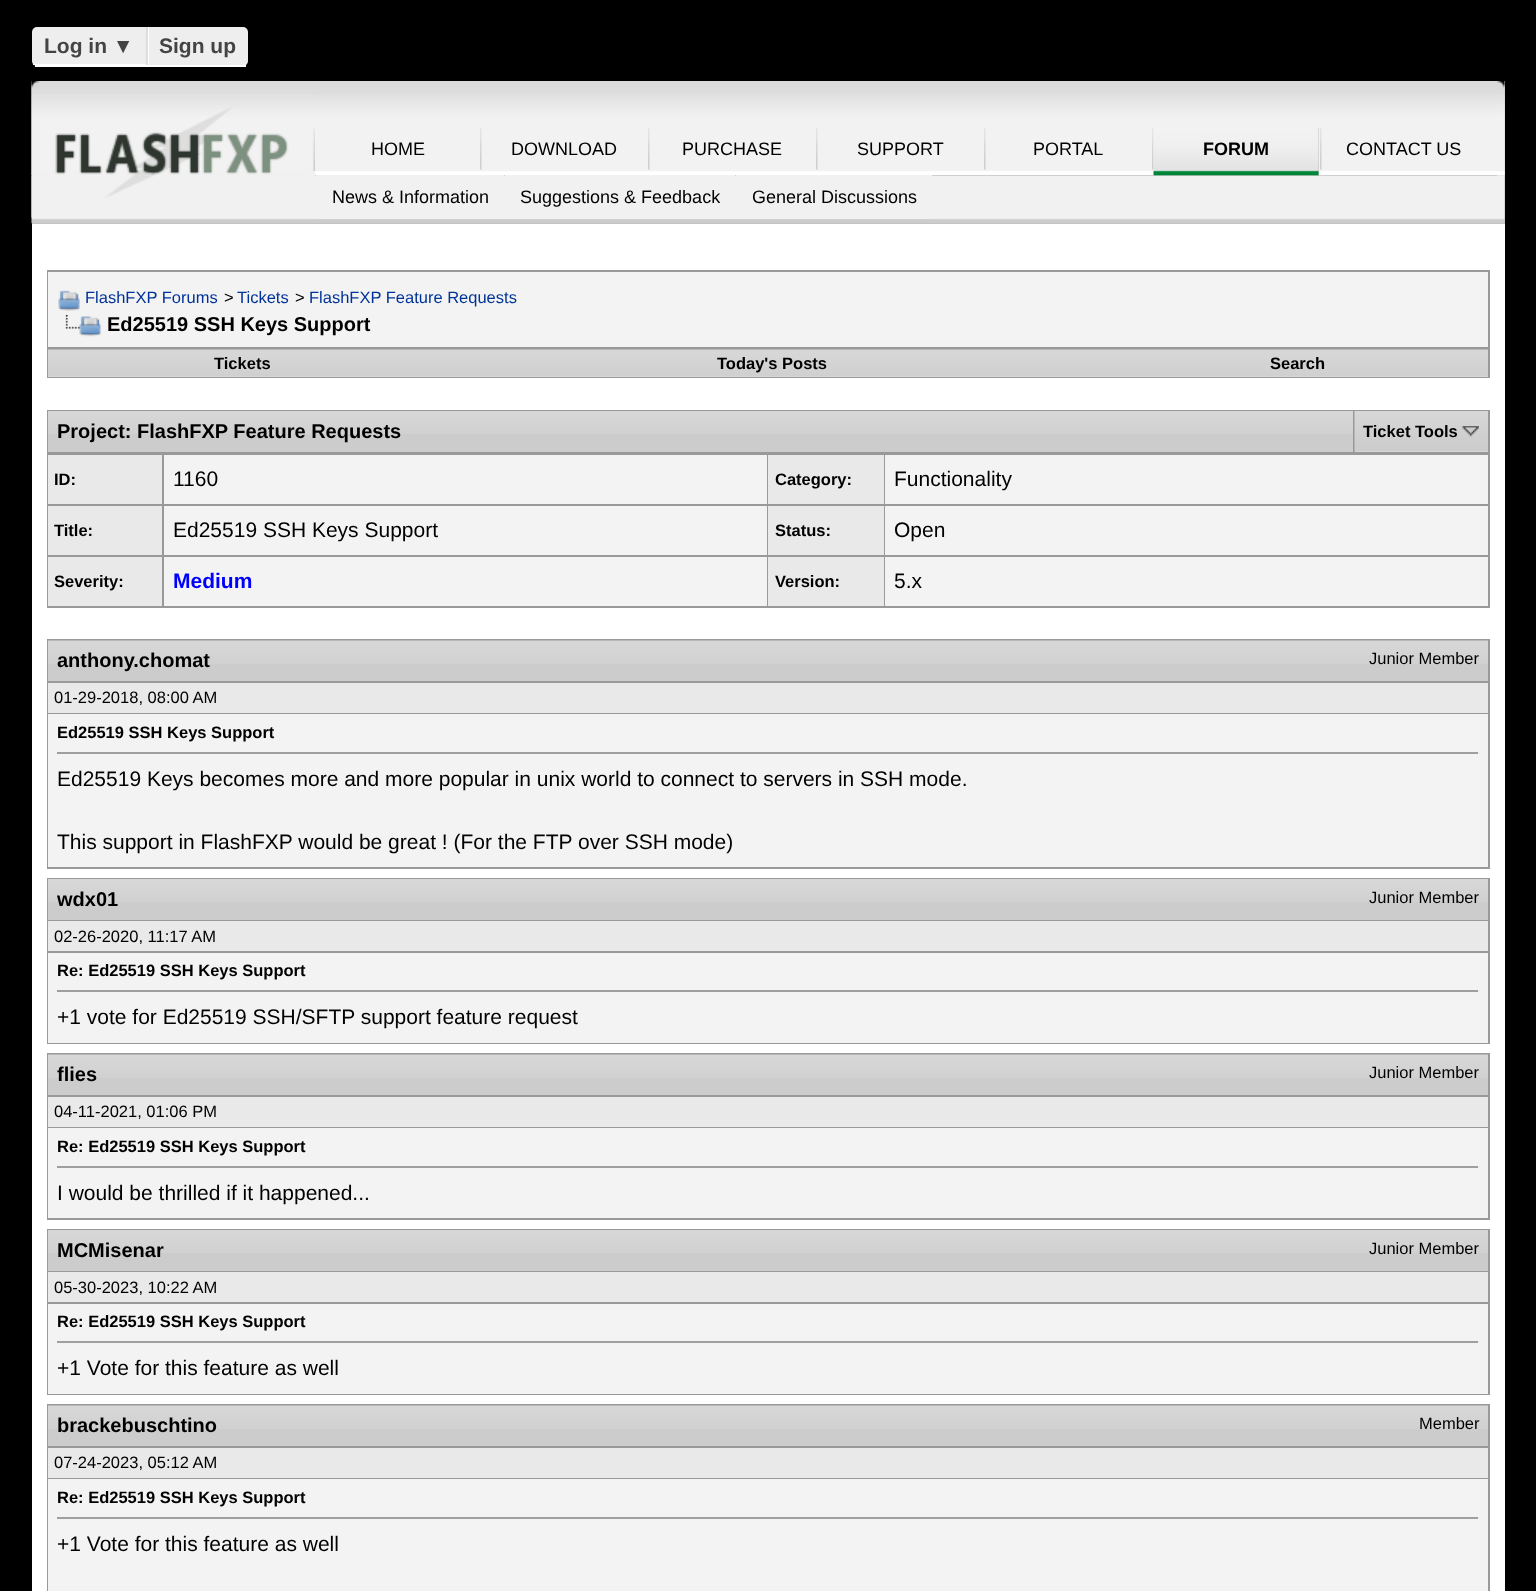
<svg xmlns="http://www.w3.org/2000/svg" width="1536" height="1591">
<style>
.a{font:bold 21px Liberation Sans;fill:#444}
.b{font:18px Liberation Sans;fill:#000}
.c{font:bold 18px Liberation Sans;fill:#000}
.d{font:16.5px Liberation Sans;fill:#039}
.e{font:16.5px Liberation Sans;fill:#000}
.f{font:bold 20px Liberation Sans;fill:#000}
.g{font:bold 16.5px Liberation Sans;fill:#000}
.h{font:21px Liberation Sans;fill:#000}
.i{font:bold 21px Liberation Sans;fill:#00f}
</style>
<rect width="100%" height="100%" fill="#000"/>
<rect fill="#eee" x="32" y="27" width="216" height="39" rx="5"/>
<path fill="#fff" d="M35 65h211v2H35z"/>
<path fill="#fff" d="M33 64v1h116v-38h-2v37z"/>
<path fill="#ddd" d="M146 27h2v38H146z"/>
<path fill="#c0c0c0" d="M32 176h1473v48H32z"/>
<image href="6.png" x="31" y="175" width="1474" height="49"/>
<path fill="#c0c0c0" d="M315 81h1190v95H315z"/>
<image href="1.png" x="31" y="81" width="1474" height="95"/>
<image href="2.png" x="31" y="81" width="284" height="137"/>
<image href="3.png" x="480" y="127" width="2" height="43"/>
<image href="3.png" x="648" y="127" width="2" height="43"/>
<image href="3.png" x="816" y="127" width="2" height="43"/>
<image href="3.png" x="984" y="127" width="2" height="43"/>
<image href="3.png" x="1152" y="127" width="2" height="43"/>
<path fill="#c0c0c0" d="M1154 128h165v48H1154z"/>
<image href="4.png" x="1153" y="128" width="166" height="48"/>
<image href="3.png" x="1320" y="127" width="2" height="43"/>
<image href="5.png" x="1497" y="81" width="8" height="95"/>
<path fill="#f1f1f1" d="M316 175h188v44H316z"/>
<path fill="#f1f1f1" d="M505 175h230v44H505z"/>
<path fill="#f1f1f1" d="M736 175h196v44H736z"/>
<path fill="#fff" d="M32 224h1473v1367H32z"/>
<path fill="#999" d="M47 270h1443v108H47z"/>
<path fill="#f3f3f3" d="M48 272h1440v75H48z"/>
<image href="7.png" x="58" y="290" width="22" height="21"/>
<image href="8.png" x="65" y="315" width="36" height="22"/>
<path fill="#e1e1e2" d="M48 376h1440v1H48z"/>
<image href="9.png" x="48" y="349" width="390" height="28"/>
<image href="10.png" x="438" y="349" width="669" height="28"/>
<image href="11.png" x="1107" y="349" width="381" height="28"/>
<path fill="#999" d="M47 410h1443v198H47z"/>
<path fill="#ccc" d="M48 434h1305v18H48z"/>
<image href="12.png" x="48" y="411" width="1305" height="23"/>
<path fill="#e1e1e2" d="M1355 451h133v1H1355z"/>
<image href="13.png" x="1354" y="411" width="134" height="41"/>
<image href="14.png" x="1462" y="426" width="17" height="11"/>
<path fill="#e9e9e9" d="M48 455h114v49H48z"/>
<path fill="#f3f3f3" d="M164 455h603v49H164z"/>
<path fill="#e9e9e9" d="M768 455h116v49H768z"/>
<path fill="#f3f3f3" d="M885 455h603v49H885z"/>
<path fill="#e9e9e9" d="M48 506h114v49H48z"/>
<path fill="#f3f3f3" d="M164 506h603v49H164z"/>
<path fill="#e9e9e9" d="M768 506h116v49H768z"/>
<path fill="#f3f3f3" d="M885 506h603v49H885z"/>
<path fill="#e9e9e9" d="M48 557h114v49H48z"/>
<path fill="#f3f3f3" d="M164 557h603v49H164z"/>
<path fill="#e9e9e9" d="M768 557h116v49H768z"/>
<path fill="#f3f3f3" d="M885 557h603v49H885z"/>
<path fill="#999" d="M47 639h1443v230H47z"/>
<path fill="#ccc" d="M48 664h1440v17H48z"/>
<image href="15.png" x="48" y="640" width="1440" height="24"/>
<path fill="#e9e9e9" d="M48 683h1440v30H48z"/>
<path fill="#f3f3f3" d="M48 714h1440v153H48z"/>
<path fill="#9f9f9f" d="M57 752h1422v2H57z"/>
<path fill="#eee" d="M1478 752h2v2H1478z"/>
<path fill="#999" d="M47 878h1443v166H47z"/>
<path fill="#ccc" d="M48 902h1440v18H48z"/>
<image href="16.png" x="48" y="879" width="1440" height="23"/>
<path fill="#e9e9e9" d="M48 921h1440v30H48z"/>
<path fill="#f3f3f3" d="M48 953h1440v90H48z"/>
<path fill="#9f9f9f" d="M57 990h1422v2H57z"/>
<path fill="#eee" d="M1478 990h2v2H1478z"/>
<path fill="#999" d="M47 1053h1443v167H47z"/>
<path fill="#ccc" d="M48 1078h1440v17H48z"/>
<image href="15.png" x="48" y="1054" width="1440" height="24"/>
<path fill="#e9e9e9" d="M48 1097h1440v30H48z"/>
<path fill="#f3f3f3" d="M48 1128h1440v90H48z"/>
<path fill="#9f9f9f" d="M57 1166h1422v2H57z"/>
<path fill="#eee" d="M1478 1166h2v2H1478z"/>
<path fill="#999" d="M47 1229h1443v166H47z"/>
<path fill="#ccc" d="M48 1253h1440v18H48z"/>
<image href="16.png" x="48" y="1230" width="1440" height="23"/>
<path fill="#e9e9e9" d="M48 1272h1440v30H48z"/>
<path fill="#f3f3f3" d="M48 1304h1440v90H48z"/>
<path fill="#9f9f9f" d="M57 1341h1422v2H57z"/>
<path fill="#eee" d="M1478 1341h2v2H1478z"/>
<path fill="#999" d="M47 1404h1443v187H47z"/>
<path fill="#ccc" d="M48 1429h1440v17H48z"/>
<image href="15.png" x="48" y="1405" width="1440" height="24"/>
<path fill="#e9e9e9" d="M48 1448h1440v30H48z"/>
<path fill="#f3f3f3" d="M48 1479h1440v112H48z"/>
<path fill="#9f9f9f" d="M57 1517h1422v2H57z"/>
<path fill="#eee" d="M1478 1517h2v2H1478z"/>
<text class="a" x="44" y="53">Log in ▼</text>
<text class="a" x="159" y="53">Sign up</text>
<text class="b" x="371" y="155">HOME</text>
<text class="b" x="511" y="155">DOWNLOAD</text>
<text class="b" x="682" y="155">PURCHASE</text>
<text class="b" x="857" y="155">SUPPORT</text>
<text class="b" x="1033" y="155">PORTAL</text>
<text class="c" x="1203" y="155">FORUM</text>
<text class="b" x="1346" y="155">CONTACT US</text>
<text class="b" x="332" y="203">News &amp; Information</text>
<text class="b" x="520" y="203">Suggestions &amp; Feedback</text>
<text class="b" x="752" y="203">General Discussions</text>
<text class="d" x="85" y="303">FlashFXP Forums</text>
<text class="e" x="224" y="303">&gt;</text>
<text class="d" x="237" y="303">Tickets</text>
<text class="e" x="295" y="303">&gt;</text>
<text class="d" x="309" y="303">FlashFXP Feature Requests</text>
<text class="f" x="107" y="331">Ed25519 SSH Keys Support</text>
<text class="g" x="214" y="369">Tickets</text>
<text class="g" x="717" y="369">Today's Posts</text>
<text class="g" x="1270" y="369">Search</text>
<text class="f" x="57" y="438">Project: FlashFXP Feature Requests</text>
<text class="g" x="1363" y="437">Ticket Tools</text>
<text class="g" x="54" y="485">ID:</text>
<text class="h" x="173" y="486">1160</text>
<text class="g" x="775" y="485">Category:</text>
<text class="h" x="894" y="486">Functionality</text>
<text class="g" x="54" y="536">Title:</text>
<text class="h" x="173" y="537">Ed25519 SSH Keys Support</text>
<text class="g" x="775" y="536">Status:</text>
<text class="h" x="894" y="537">Open</text>
<text class="g" x="54" y="587">Severity:</text>
<text class="i" x="173" y="588">Medium</text>
<text class="g" x="775" y="587">Version:</text>
<text class="h" x="894" y="588">5.x</text>
<text class="f" x="57" y="667">anthony.chomat</text>
<text class="e" x="1369" y="664">Junior Member</text>
<text class="e" x="54" y="703">01-29-2018, 08:00 AM</text>
<text class="g" x="57" y="738">Ed25519 SSH Keys Support</text>
<text class="h" x="57" y="786">Ed25519 Keys becomes more and more popular in unix world to connect to servers in SSH mode.</text>
<text class="h" x="57" y="849">This support in FlashFXP would be great ! (For the FTP over SSH mode)</text>
<text class="f" x="57" y="906">wdx01</text>
<text class="e" x="1369" y="903">Junior Member</text>
<text class="e" x="54" y="942">02-26-2020, 11:17 AM</text>
<text class="g" x="57" y="976">Re: Ed25519 SSH Keys Support</text>
<text class="h" x="57" y="1024">+1 vote for Ed25519 SSH/SFTP support feature request</text>
<text class="f" x="57" y="1081">flies</text>
<text class="e" x="1369" y="1078">Junior Member</text>
<text class="e" x="54" y="1117">04-11-2021, 01:06 PM</text>
<text class="g" x="57" y="1152">Re: Ed25519 SSH Keys Support</text>
<text class="h" x="57" y="1200">I would be thrilled if it happened...</text>
<text class="f" x="57" y="1257">MCMisenar</text>
<text class="e" x="1369" y="1254">Junior Member</text>
<text class="e" x="54" y="1293">05-30-2023, 10:22 AM</text>
<text class="g" x="57" y="1327">Re: Ed25519 SSH Keys Support</text>
<text class="h" x="57" y="1375">+1 Vote for this feature as well</text>
<text class="f" x="57" y="1432">brackebuschtino</text>
<text class="e" x="1419" y="1429">Member</text>
<text class="e" x="54" y="1468">07-24-2023, 05:12 AM</text>
<text class="g" x="57" y="1503">Re: Ed25519 SSH Keys Support</text>
<text class="h" x="57" y="1551">+1 Vote for this feature as well</text>
</svg>
